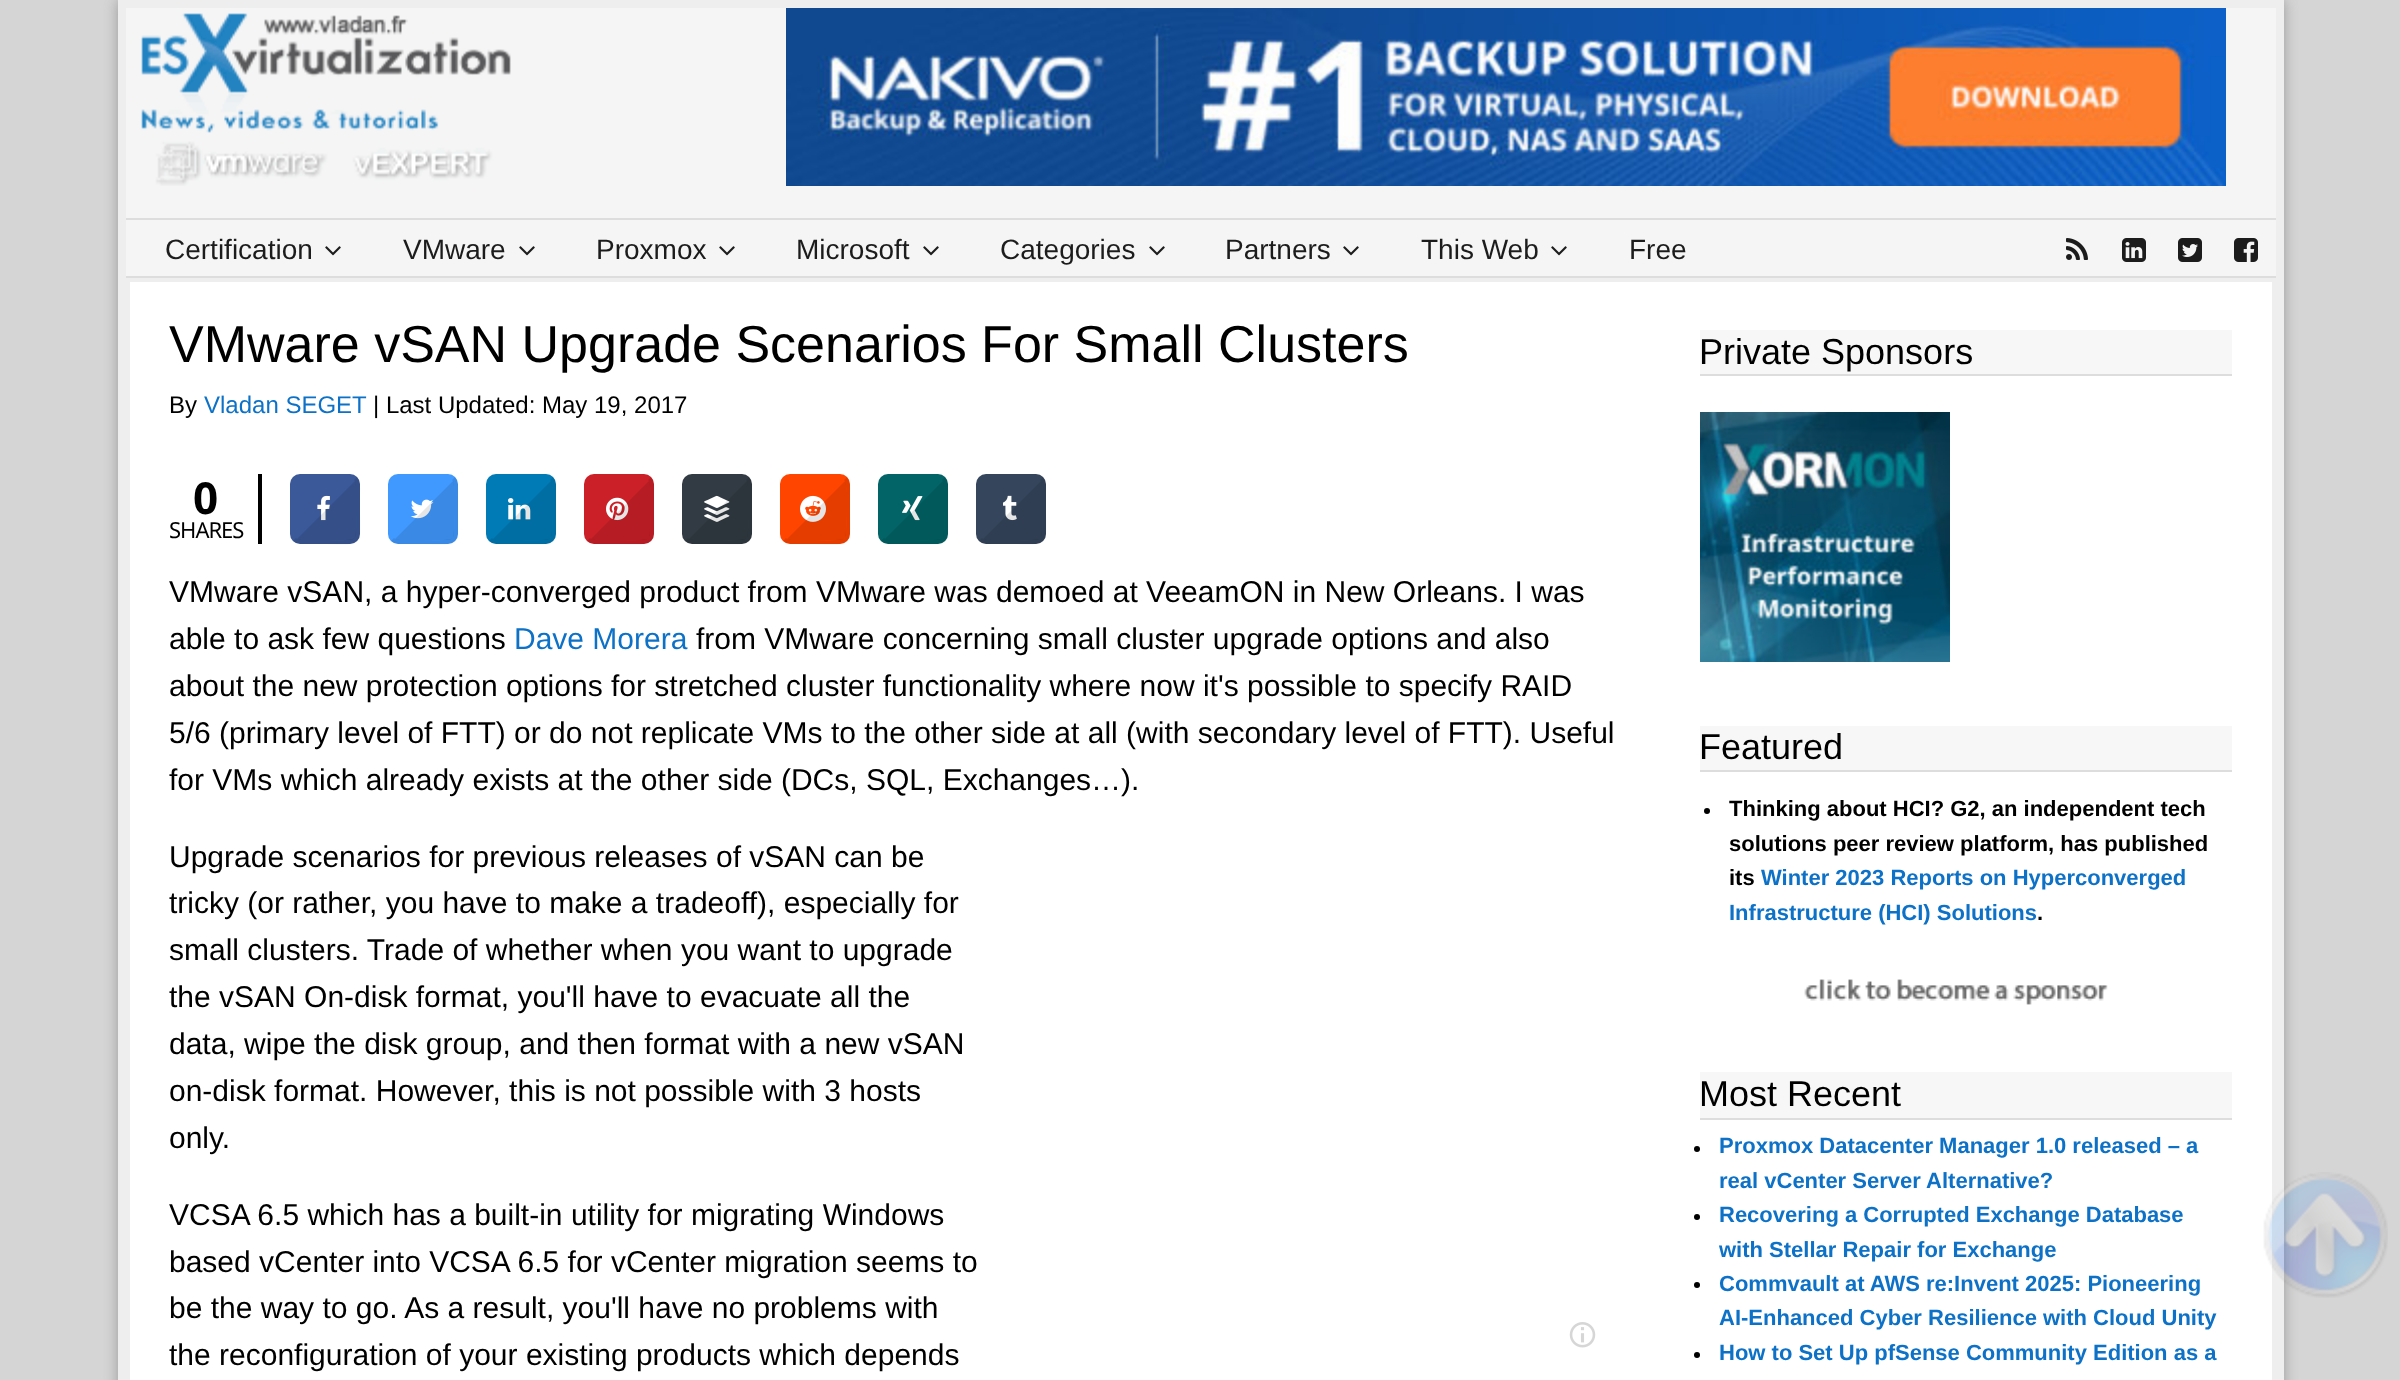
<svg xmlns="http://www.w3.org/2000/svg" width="2400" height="1380">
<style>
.a{font:28px Liberation Sans;fill:#1c1c1c}
.b{font:52px Liberation Sans;fill:#000}
.c{font:24px Liberation Sans;fill:#000}
.d{font:24px Liberation Sans;fill:#0d72c7}
.e{font:bold 44px Noto Sans;letter-spacing:1px;fill:#000}
.f{font:22px Noto Sans;letter-spacing:-1px;fill:#000}
.g{font:30px Liberation Sans;fill:#000}
.h{font:30px Liberation Sans;fill:#0d72c7}
.i{font:36px Liberation Sans;fill:#000}
.j{font:bold 22px Liberation Sans;fill:#000}
.k{font:bold 22px Liberation Sans;fill:#0d72c7}
</style>
<rect width="100%" height="100%" fill="#d5d5d5"/>
<path fill="#999" filter="blur(7px)" d="M118 0h2166v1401H118z"/>
<path fill="#fff" d="M130 282h2142v1098H130z"/>
<path fill="none" stroke="#eee" stroke-width="8" d="M122 4h2158v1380H122z"/>
<path fill="#f5f5f5" d="M126 8h2150v210H126z"/>
<image href="1.png" x="141" y="13" width="370" height="173"/>
<image href="2.png" x="786" y="8" width="1440" height="178"/>
<path fill="#f5f5f5" d="M126 220h2150v56H126z"/>
<path fill="#ddd" d="M126 218h2150v2H126z"/>
<path fill="#ddd" d="M126 276h2150v2H126z"/>
<image href="3.png" x="325" y="246" width="16" height="10"/>
<image href="3.png" x="519" y="246" width="16" height="10"/>
<image href="3.png" x="719" y="246" width="16" height="10"/>
<image href="3.png" x="923" y="246" width="16" height="10"/>
<image href="3.png" x="1149" y="246" width="16" height="10"/>
<image href="3.png" x="1343" y="246" width="16" height="10"/>
<image href="3.png" x="1551" y="246" width="16" height="10"/>
<image href="4.png" x="2066" y="238" width="22" height="22"/>
<image href="5.png" x="2122" y="238" width="24" height="24"/>
<image href="6.png" x="2178" y="238" width="24" height="24"/>
<image href="7.png" x="2234" y="238" width="24" height="24"/>
<path fill="none" stroke="#eee" stroke-width="4" d="M128 280h2146v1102H128z"/>
<path fill="#000" d="M258 474h4v70H258z"/>
<rect fill="#3b5998" x="290" y="474" width="70" height="70" rx="10"/>
<path fill="none" stroke="#0000001a" stroke-width="4" d="M355.5 478.5c3.5 3.5 2.5 9.5 2.5 14v16.5c0 38 5 33-33 33h-16.5c-4.5 0-10.5 1-14-2.5"/>
<image href="8.png" x="317" y="495" width="13" height="26"/>
<path fill="#0000001a" d="M355 481l1 3v50c0 3-3 6-6 6h-50l-3-1z"/>
<rect fill="#4099ff" x="388" y="474" width="70" height="70" rx="10"/>
<path fill="none" stroke="#0000001a" stroke-width="4" d="M453.5 478.5c3.5 3.5 2.5 9.5 2.5 14v16.5c0 38 5 33-33 33h-16.5c-4.5 0-10.5 1-14-2.5"/>
<image href="9.png" x="410" y="499" width="24" height="20"/>
<path fill="#0000001a" d="M453 481l1 3v50c0 3-3 6-6 6h-50l-3-1z"/>
<rect fill="#007bb6" x="486" y="474" width="70" height="70" rx="10"/>
<path fill="none" stroke="#0000001a" stroke-width="4" d="M551.5 478.5c3.5 3.5 2.5 9.5 2.5 14v16.5c0 38 5 33-33 33h-16.5c-4.5 0-10.5 1-14-2.5"/>
<image href="10.png" x="508" y="498" width="23" height="22"/>
<path fill="#0000001a" d="M551 481l1 3v50c0 3-3 6-6 6h-50l-3-1z"/>
<rect fill="#cb2027" x="584" y="474" width="70" height="70" rx="10"/>
<path fill="none" stroke="#0000001a" stroke-width="4" d="M649.5 478.5c3.5 3.5 2.5 9.5 2.5 14v16.5c0 38 5 33-33 33h-16.5c-4.5 0-10.5 1-14-2.5"/>
<image href="11.png" x="606" y="497" width="23" height="24"/>
<path fill="#0000001a" d="M649 481l1 3v50c0 3-3 6-6 6h-50l-3-1z"/>
<rect fill="#323b43" x="682" y="474" width="70" height="70" rx="10"/>
<path fill="none" stroke="#0000001a" stroke-width="4" d="M747.5 478.5c3.5 3.5 2.5 9.5 2.5 14v16.5c0 38 5 33-33 33h-16.5c-4.5 0-10.5 1-14-2.5"/>
<image href="12.png" x="704" y="495" width="26" height="27"/>
<path fill="#0000001a" d="M747 481l1 3v50c0 3-3 6-6 6h-50l-3-1z"/>
<rect fill="#ff4500" x="780" y="474" width="70" height="70" rx="10"/>
<path fill="none" stroke="#0000001a" stroke-width="4" d="M845.5 478.5c3.5 3.5 2.5 9.5 2.5 14v16.5c0 38 5 33-33 33h-16.5c-4.5 0-10.5 1-14-2.5"/>
<image href="13.png" x="800" y="495" width="26" height="27"/>
<path fill="#0000001a" d="M845 481l1 3v50c0 3-3 6-6 6h-50l-3-1z"/>
<rect fill="#026466" x="878" y="474" width="70" height="70" rx="10"/>
<path fill="none" stroke="#0000001a" stroke-width="4" d="M943.5 478.5c3.5 3.5 2.5 9.5 2.5 14v16.5c0 38 5 33-33 33h-16.5c-4.5 0-10.5 1-14-2.5"/>
<image href="14.png" x="902" y="496" width="21" height="25"/>
<path fill="#0000001a" d="M943 481l1 3v50c0 3-3 6-6 6h-50l-3-1z"/>
<rect fill="#35465c" x="976" y="474" width="70" height="70" rx="10"/>
<path fill="none" stroke="#0000001a" stroke-width="4" d="M1041.5 478.5c3.5 3.5 2.5 9.5 2.5 14v16.5c0 38 5 33-33 33h-16.5c-4.5 0-10.5 1-14-2.5"/>
<image href="15.png" x="1003" y="495" width="14" height="26"/>
<path fill="#0000001a" d="M1041 481l1 3v50c0 3-3 6-6 6h-50l-3-1z"/>
<image href="16.png" x="1569" y="1322" width="27" height="26"/>
<path fill="#f7f7f7" d="M1700 330h532v44H1700z"/>
<path fill="#ddd" d="M1700 374h532v2H1700z"/>
<image href="17.png" x="1700" y="412" width="250" height="250"/>
<path fill="#f7f7f7" d="M1700 726h532v44H1700z"/>
<path fill="#ddd" d="M1700 770h532v2H1700z"/>
<circle fill="#000" cx="1707" cy="811" r="3"/>
<image href="18.png" x="1804" y="979" width="304" height="26"/>
<path fill="#f7f7f7" d="M1700 1072h532v46H1700z"/>
<path fill="#ddd" d="M1700 1118h532v2H1700z"/>
<circle fill="#000" cx="1697" cy="1149" r="3"/>
<circle fill="#000" cx="1697" cy="1217" r="3"/>
<circle fill="#000" cx="1697" cy="1285" r="3"/>
<circle fill="#000" cx="1697" cy="1355" r="3"/>
<image href="19.png" x="2263" y="1172" width="125" height="126"/>
<text class="a" x="165" y="259">Certification</text>
<text class="a" x="403" y="259">VMware</text>
<text class="a" x="596" y="259">Proxmox</text>
<text class="a" x="796" y="259">Microsoft</text>
<text class="a" x="1000" y="259">Categories</text>
<text class="a" x="1225" y="259">Partners</text>
<text class="a" x="1421" y="259">This Web</text>
<text class="a" x="1629" y="259">Free</text>
<text class="b" x="169" y="362">VMware vSAN Upgrade Scenarios For Small Clusters</text>
<text class="c" x="169" y="413">By</text>
<text class="d" x="204" y="413">Vladan SEGET</text>
<text class="c" x="373" y="413">| Last Updated: May 19, 2017</text>
<text class="e" x="193" y="514">0</text>
<text class="f" x="169" y="538">SHARES</text>
<text class="g" x="169" y="602">VMware vSAN, a hyper-converged product from VMware was demoed at VeeamON in New Orleans. I was</text>
<text class="g" x="169" y="649">able to ask few questions</text>
<text class="h" x="514" y="649">Dave Morera</text>
<text class="g" x="696" y="649">from VMware concerning small cluster upgrade options and also</text>
<text class="g" x="169" y="696">about the new protection options for stretched cluster functionality where now it's possible to specify RAID</text>
<text class="g" x="169" y="743">5/6 (primary level of FTT) or do not replicate VMs to the other side at all (with secondary level of FTT). Useful</text>
<text class="g" x="169" y="790">for VMs which already exists at the other side (DCs, SQL, Exchanges…).</text>
<text class="g" x="169" y="867">Upgrade scenarios for previous releases of vSAN can be</text>
<text class="g" x="169" y="913">tricky (or rather, you have to make a tradeoff), especially for</text>
<text class="g" x="169" y="960">small clusters. Trade of whether when you want to upgrade</text>
<text class="g" x="169" y="1007">the vSAN On-disk format, you'll have to evacuate all the</text>
<text class="g" x="169" y="1054">data, wipe the disk group, and then format with a new vSAN</text>
<text class="g" x="169" y="1101">on-disk format. However, this is not possible with 3 hosts</text>
<text class="g" x="169" y="1148">only.</text>
<text class="g" x="169" y="1225">VCSA 6.5 which has a built-in utility for migrating Windows</text>
<text class="g" x="169" y="1272">based vCenter into VCSA 6.5 for vCenter migration seems to</text>
<text class="g" x="169" y="1318">be the way to go. As a result, you'll have no problems with</text>
<text class="g" x="169" y="1365">the reconfiguration of your existing products which depends</text>
<text class="i" x="1699" y="364">Private Sponsors</text>
<text class="i" x="1699" y="759">Featured</text>
<text class="j" x="1729" y="816">Thinking about HCI? G2, an independent tech</text>
<text class="j" x="1729" y="851">solutions peer review platform, has published</text>
<text class="j" x="1729" y="885">its</text>
<text class="k" x="1761" y="885">Winter 2023 Reports on Hyperconverged</text>
<text class="k" x="1729" y="920">Infrastructure (HCI) Solutions</text>
<text class="j" x="2037" y="920">.</text>
<text class="i" x="1699" y="1106">Most Recent</text>
<text class="k" x="1719" y="1153">Proxmox Datacenter Manager 1.0 released – a</text>
<text class="k" x="1719" y="1188">real vCenter Server Alternative?</text>
<text class="k" x="1719" y="1222">Recovering a Corrupted Exchange Database</text>
<text class="k" x="1719" y="1257">with Stellar Repair for Exchange</text>
<text class="k" x="1719" y="1291">Commvault at AWS re:Invent 2025: Pioneering</text>
<text class="k" x="1719" y="1325">AI-Enhanced Cyber Resilience with Cloud Unity</text>
<text class="k" x="1719" y="1360">How to Set Up pfSense Community Edition as a</text>
</svg>
